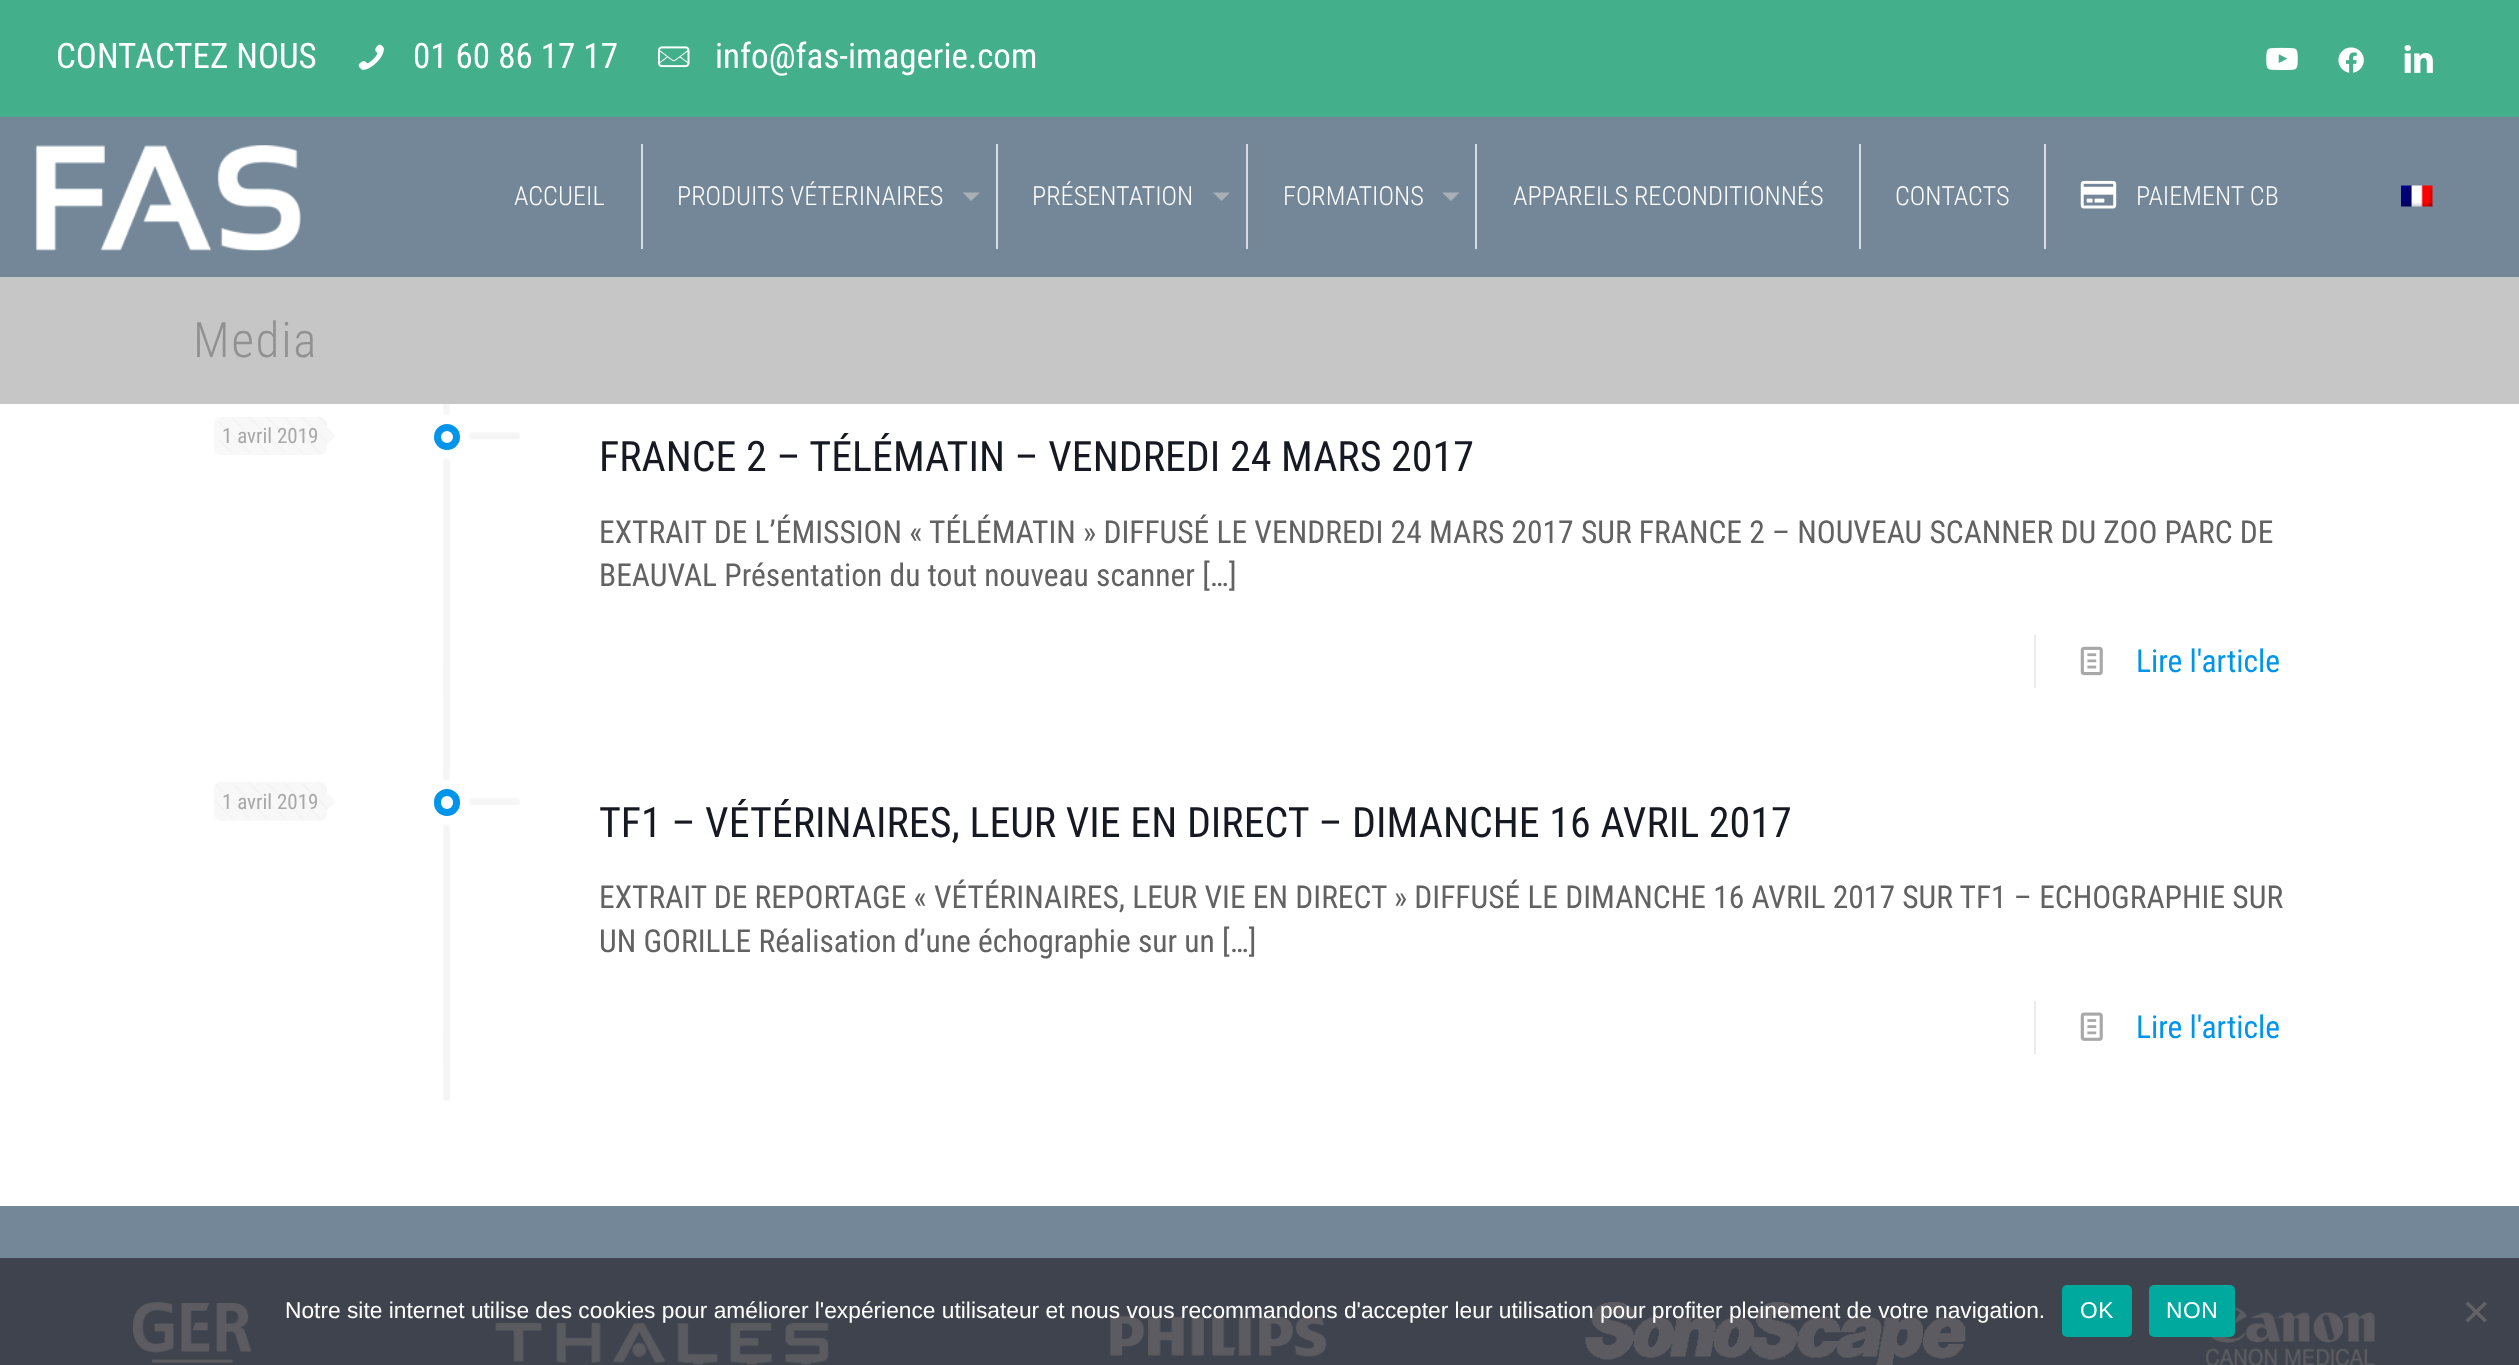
<svg xmlns="http://www.w3.org/2000/svg" width="2519" height="1365">
<style>
.a{font:35px Roboto Condensed;fill:#fff}
.b{font:300 26.25px Roboto Condensed;fill:#fff}
.c{font:300 49px Roboto Condensed;letter-spacing:1.75px;fill:#919191}
.d{font:21px Roboto Condensed;fill:#a8a8a8}
.e{font:42px Roboto Condensed;fill:#161922}
.f{font:31.5px Roboto Condensed;fill:#626262}
.g{font:31.5px Roboto Condensed;fill:#0095eb}
.h{font:22.75px Liberation Sans;fill:#fff}
.i{font:22.75px Liberation Sans;letter-spacing:0.5px;fill:#fff}
</style>
<rect width="100%" height="100%" fill="#fff"/>
<path fill="#43af8b" d="M0 0h2519v117H0z"/>
<image href="1.png" x="358" y="44" width="26" height="26"/>
<image href="2.png" x="658" y="46" width="32" height="22"/>
<image href="3.png" x="2266" y="47" width="32" height="24"/>
<image href="4.png" x="2338" y="47" width="26" height="26"/>
<image href="5.png" x="2404" y="45" width="29" height="28"/>
<path fill="#738798" d="M0 117h2519v160H0z"/>
<image href="6.png" x="35" y="145" width="266" height="106"/>
<path fill="#d5dbe0" d="M641 144h2v105H641z"/>
<path fill="#d5dbe0" d="M996 144h2v105H996z"/>
<path fill="#a8b0b7" d="M962.5 192.5h17.5l-9 8.5z"/>
<path fill="#d5dbe0" d="M1246 144h2v105H1246z"/>
<path fill="#a8b0b7" d="M1213 192.5h17l-8.5 8.5z"/>
<path fill="#d5dbe0" d="M1475 144h2v105H1475z"/>
<path fill="#a8b0b7" d="M1442 192.5h17.5l-8.5 8.5z"/>
<path fill="#d5dbe0" d="M1859 144h2v105H1859z"/>
<path fill="#d5dbe0" d="M2044 144h2v105H2044z"/>
<image href="7.png" x="2080" y="180" width="37" height="29"/>
<image href="8.png" x="2401" y="185" width="32" height="22"/>
<path fill="#c6c6c6" d="M0 277h2519v127H0z"/>
<image href="9.png" x="443" y="404" width="77" height="366"/>
<rect fill="#f8f8f8" x="214" y="417" width="113" height="38" rx="7"/>
<image href="10.png" x="219" y="417" width="108" height="36"/>
<path fill="#f8f8f8" d="M327 444.5v-17.5l9 9z"/>
<circle fill="none" stroke="#0095eb" stroke-width="7" cx="447" cy="437" r="9.5"/>
<path fill="#ebebeb" d="M2034 635h2v53H2034z"/>
<image href="11.png" x="2080" y="646" width="23" height="30"/>
<image href="12.png" x="443" y="770" width="77" height="331"/>
<rect fill="#f8f8f8" x="214" y="782" width="113" height="39" rx="7"/>
<image href="13.png" x="214" y="783" width="113" height="36"/>
<path fill="#f8f8f8" d="M327 810v-17l9 8.5z"/>
<rect fill="none" stroke="#0095eb" stroke-width="7" x="437.5" y="792.5" width="19" height="20" rx="9.5"/>
<path fill="#ebebeb" d="M2034 1001h2v53H2034z"/>
<image href="14.png" x="2080" y="1012" width="23" height="29"/>
<path fill="#738798" d="M0 1206h2519v52H0z"/>
<path fill="#3f434d" d="M0 1258h2519v107H0z"/>
<image href="15.png" x="133" y="1302" width="119" height="62"/>
<image href="16.png" x="495" y="1322" width="334" height="43"/>
<image href="17.png" x="1109" y="1315" width="218" height="42"/>
<image href="18.png" x="1585" y="1302" width="381" height="63"/>
<image href="19.png" x="2206" y="1307" width="169" height="58"/>
<rect fill="#00a99d" x="2062" y="1285" width="70" height="52" rx="5"/>
<rect fill="#00a99d" x="2149" y="1285" width="86" height="52" rx="5"/>
<path fill="#606266" d="M2484.5 1301.5l2.5 2.5l-19 18.5l-2.5-2.5z"/>
<path fill="#606266" d="M2465.5 1304l2.5-2.5l19 18.5l-2.5 2.5z"/>
<text class="a" x="56" y="68">CONTACTEZ NOUS</text>
<text class="a" x="413" y="68">01 60 86 17 17</text>
<text class="a" x="715" y="68">info@fas-imagerie.com</text>
<text class="b" x="514" y="205">ACCUEIL</text>
<text class="b" x="677" y="205">PRODUITS VÉTERINAIRES</text>
<text class="b" x="1032" y="205">PRÉSENTATION</text>
<text class="b" x="1283" y="205">FORMATIONS</text>
<text class="b" x="1513" y="205">APPAREILS RECONDITIONNÉS</text>
<text class="b" x="1895" y="205">CONTACTS</text>
<text class="b" x="2136" y="205">PAIEMENT CB</text>
<text class="c" x="193" y="357">Media</text>
<text class="d" x="222" y="443">1 avril 2019</text>
<text class="e" x="599" y="471">FRANCE 2 – TÉLÉMATIN – VENDREDI 24 MARS 2017</text>
<text class="f" x="599" y="543">EXTRAIT DE L’ÉMISSION « TÉLÉMATIN » DIFFUSÉ LE VENDREDI 24 MARS 2017 SUR FRANCE 2 – NOUVEAU SCANNER DU ZOO PARC DE</text>
<text class="f" x="599" y="586">BEAUVAL Présentation du tout nouveau scanner […]</text>
<text class="g" x="2136" y="672">Lire l'article</text>
<text class="d" x="222" y="809">1 avril 2019</text>
<text class="e" x="599" y="837">TF1 – VÉTÉRINAIRES, LEUR VIE EN DIRECT – DIMANCHE 16 AVRIL 2017</text>
<text class="f" x="599" y="908">EXTRAIT DE REPORTAGE « VÉTÉRINAIRES, LEUR VIE EN DIRECT » DIFFUSÉ LE DIMANCHE 16 AVRIL 2017 SUR TF1 – ECHOGRAPHIE SUR</text>
<text class="f" x="599" y="952">UN GORILLE Réalisation d’une échographie sur un […]</text>
<text class="g" x="2136" y="1038">Lire l'article</text>
<text class="h" x="285" y="1318">Notre site internet utilise des cookies pour améliorer l'expérience utilisateur et nous vous recommandons d'accepter leur utilisation pour profiter pleinement de votre navigation.</text>
<text class="i" x="2080" y="1318">OK</text>
<text class="i" x="2166" y="1318">NON</text>
</svg>
